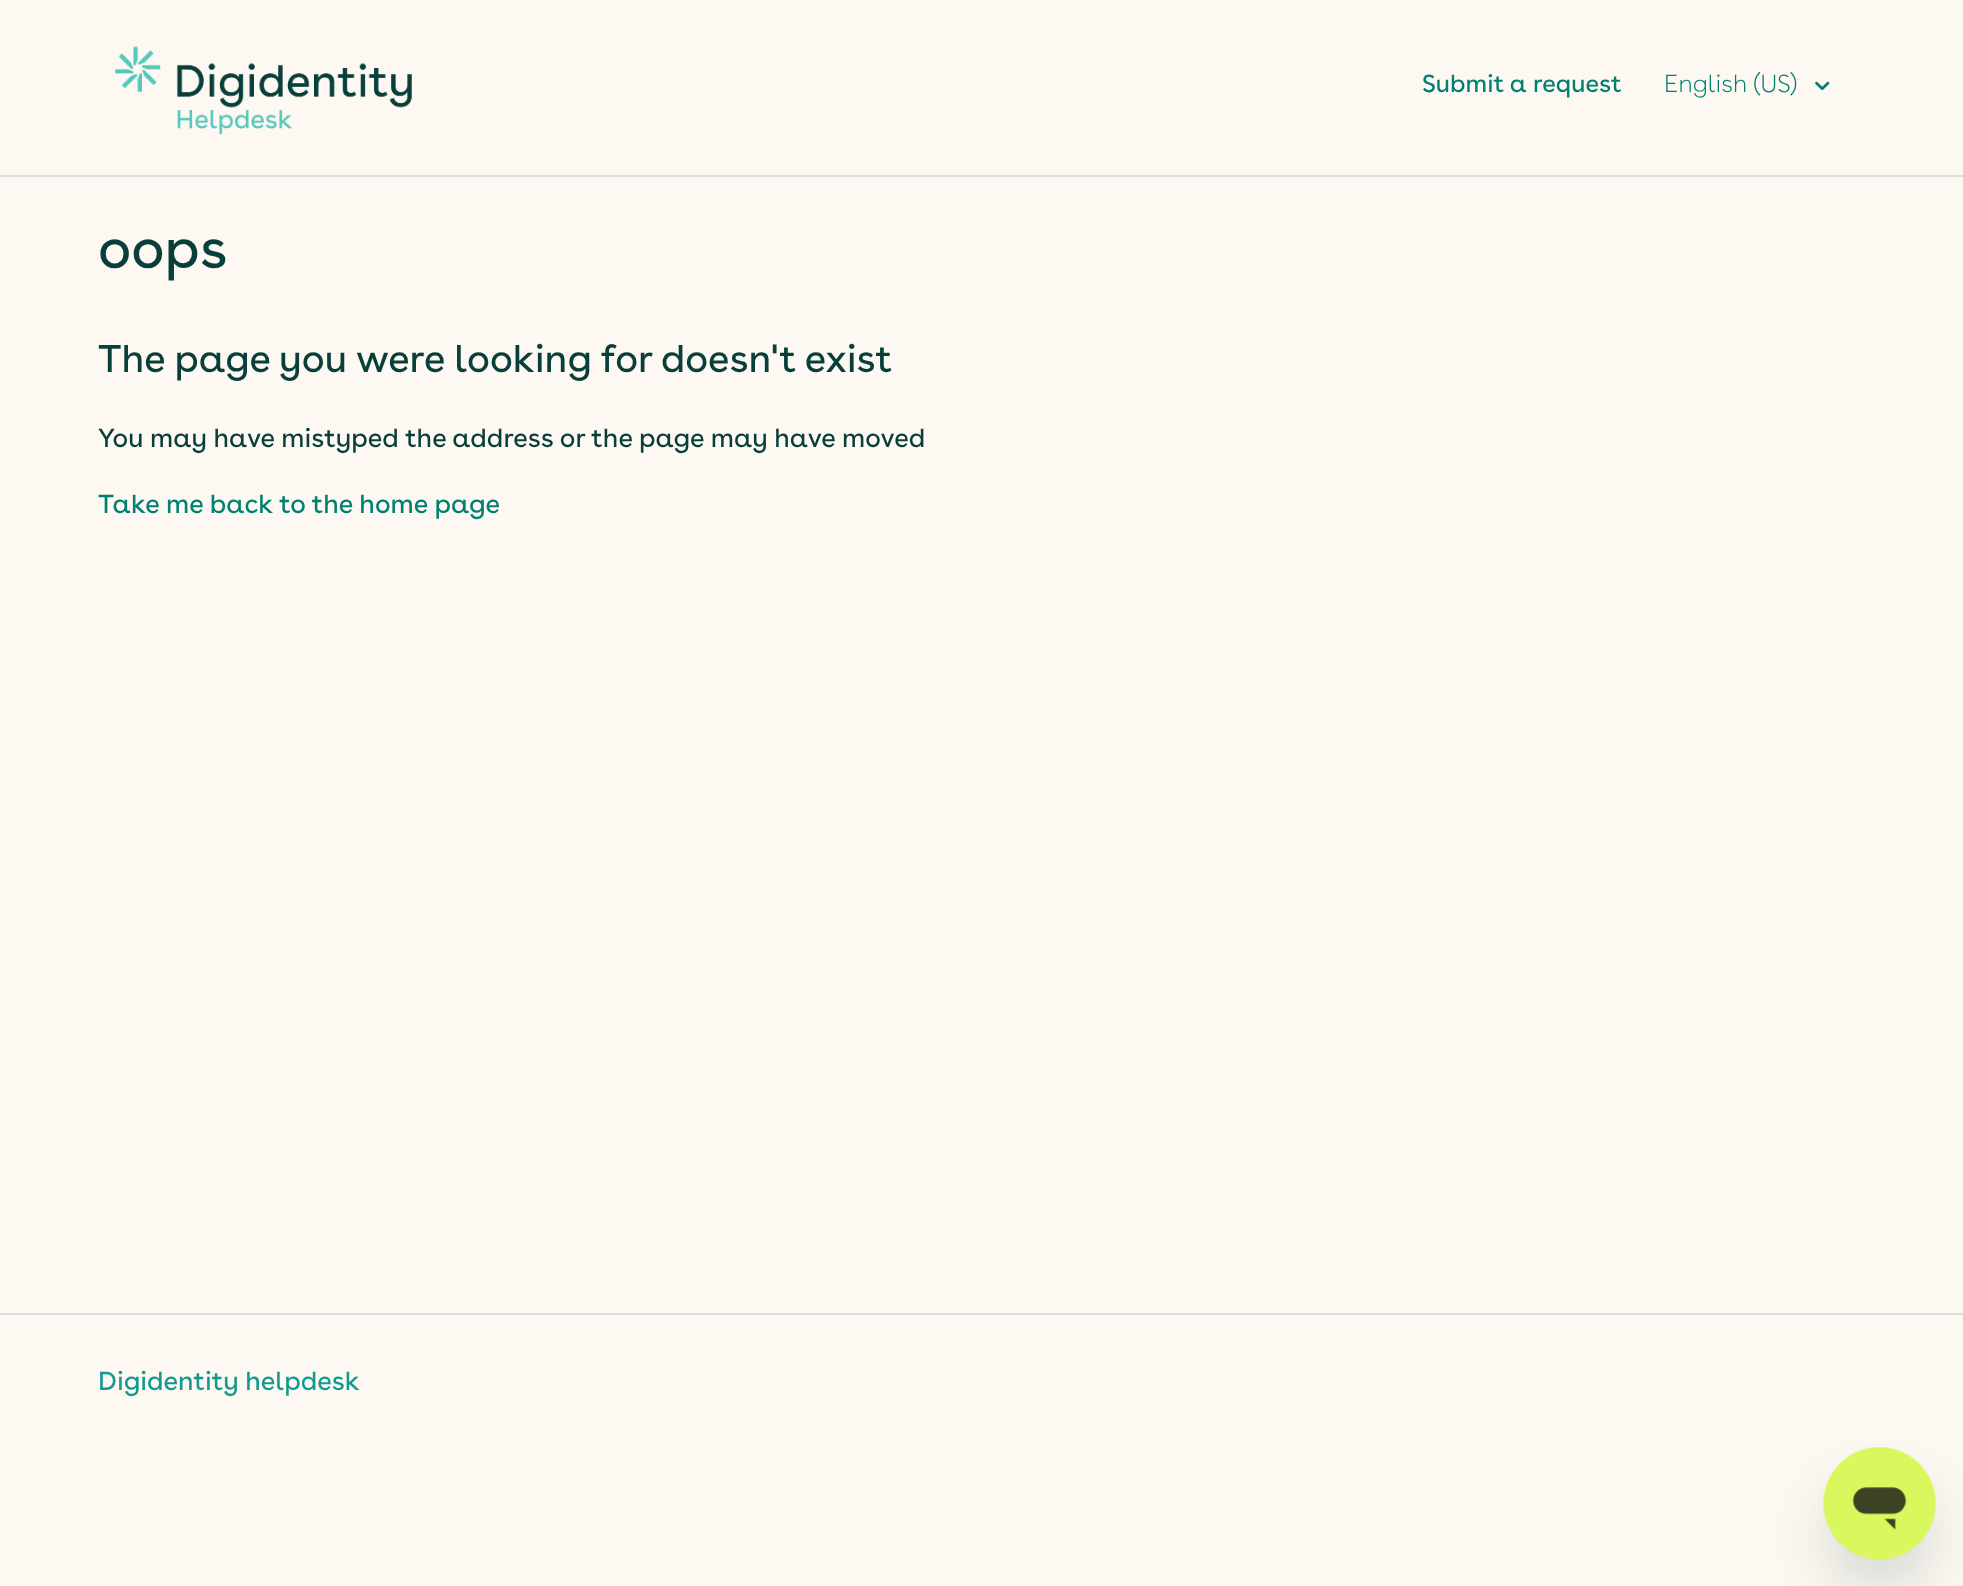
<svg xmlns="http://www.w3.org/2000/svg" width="1963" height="1586">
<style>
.a{font:24.5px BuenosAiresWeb;fill:#008071}
.b{font:100 24.5px BuenosAiresWeb;fill:#008071}
.c{font:56px BuenosAiresWeb;fill:#083f3b}
.d{font:38.5px BuenosAiresWeb;fill:#083f3b}
.e{font:26.25px BuenosAiresWeb;fill:#083f3b}
.f{font:26.25px BuenosAiresWeb;fill:#008071}
.g{font:26.25px BuenosAiresWeb;fill:#139a90}
</style>
<rect width="100%" height="100%" fill="#fdf8f1"/>
<image href="1.png" x="115" y="46" width="297" height="89"/>
<image href="2.png" x="1815" y="81" width="15" height="10"/>
<path fill="#ddd" d="M0 175h1963v2H0z"/>
<path fill="#ddd" d="M0 1313h1963v2H0z"/>
<rect fill="#17494d26" filter="blur(26px)" x="1824" y="1482" width="112" height="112" rx="56"/>
<image href="3.png" x="1823" y="1447" width="113" height="113"/>
<text class="a" x="1422" y="92">Submit a request</text>
<text class="b" x="1664" y="92">English (US)</text>
<text class="c" x="98" y="268">oops</text>
<text class="d" x="98" y="372">The page you were looking for doesn't exist</text>
<text class="e" x="98" y="447">You may have mistyped the address or the page may have moved</text>
<text class="f" x="98" y="513">Take me back to the home page</text>
<text class="g" x="98" y="1390">Digidentity helpdesk</text>
</svg>
